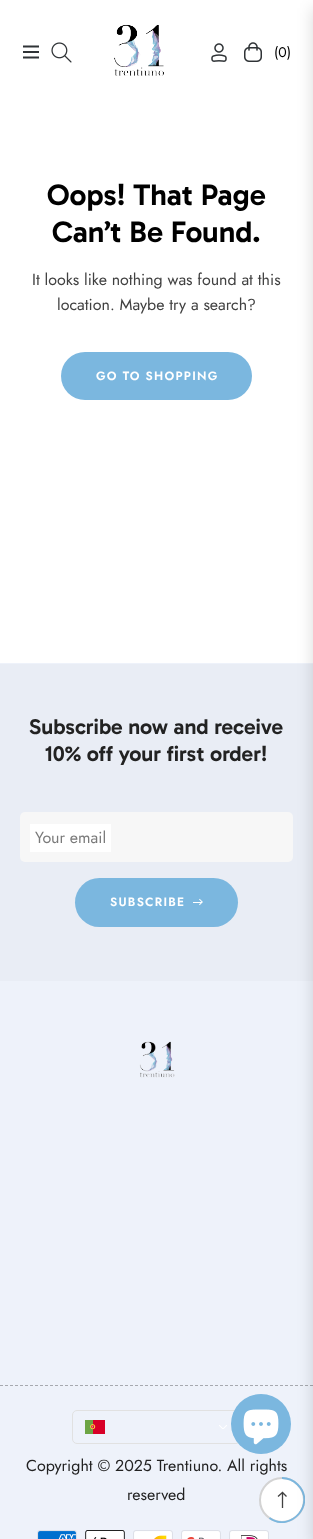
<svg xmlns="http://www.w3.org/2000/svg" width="313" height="1539">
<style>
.a{font:14px Jost;fill:#000}
.b{font:600 30px Gabarito;fill:#000}
.c{font:16px Jost;fill:#414141}
.d{font:600 12px Jost;letter-spacing:1.25px;fill:#fff}
.e{font:600 21.6px Gabarito;fill:#222}
.f{font:16px Jost;fill:#7a7a7a}
.g{font:16px Jost;fill:#222}
</style>
<defs>
<clipPath id="clip1"><path d="M259 1477h46v46H259z"/></clipPath>
</defs>
<rect width="100%" height="100%" fill="#fff"/>
<path fill="none" stroke="#2f3336" stroke-width="1.8" d="M23 46.5h16m-16 11h16zm0-5.5h16z"/>
<image href="1.png" x="51" y="42" width="21" height="21"/>
<image href="2.png" x="114" y="24" width="50" height="52"/>
<image href="3.png" x="211" y="43" width="16" height="19"/>
<image href="4.png" x="244" y="42" width="18" height="20"/>
<path fill="#eef2fa" d="M0 663h313v876H0z"/>
<path fill="#e9edf5" d="M0 664h313v317H0z"/>
<rect fill="#f7f7f7" x="20" y="812" width="273" height="50" rx="5"/>
<path fill="none" stroke="#a7a9af" stroke-dasharray="3 2" d="M0 1385.5h313"/>
<circle fill="#fff" cx="282" cy="1500" r="23"/>
<circle fill="none" stroke="#22222233" stroke-width="2" cx="282" cy="1500" r="22"/>
<g clip-path="url(#clip1)">
<path fill="none" stroke="#7bb7df" stroke-width="1.8" d="M282 1478c6 0 11.5 2.5 15.5 6.5c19.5 19-7 48.5-28 33.5"/>
</g>
<path fill="#00000026" filter="blur(8px)" d="M313 8h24v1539H313z"/>
<rect fill="#7bb7df" x="61" y="352" width="191" height="48" rx="24"/>
<path fill="#fff" d="M30 824h81v28H30z"/>
<rect fill="#7bb7df" x="75" y="878" width="163" height="49" rx="24.5"/>
<image href="5.png" x="193" y="898" width="10" height="8"/>
<image href="6.png" x="139" y="1041" width="36" height="37"/>
<rect fill="none" stroke="#e1e1e1" x="72.5" y="1410.5" width="168" height="33" rx="4.5"/>
<path fill="#00000033" filter="blur(0.5px)" d="M85 1420h20v14H85z"/>
<image href="7.png" x="85" y="1420" width="20" height="14"/>
<image href="8.png" x="219" y="1425" width="8" height="4"/>
<image href="9.png" x="37" y="1530" width="40" height="9"/>
<image href="10.png" x="85" y="1530" width="40" height="9"/>
<image href="11.png" x="133" y="1530" width="40" height="9"/>
<image href="12.png" x="181" y="1530" width="40" height="9"/>
<image href="13.png" x="229" y="1530" width="40" height="9"/>
<circle fill="#7bb7df" cx="261" cy="1424" r="30"/>
<image href="14.png" x="243" y="1409" width="36" height="36"/>
<path fill="none" stroke="#414141" stroke-width="1.3" d="M286.5 1496.5l-4-4l-4.5 4m4.5-4v15.5"/>
<text class="a" x="274" y="57">(0)</text>
<text class="b" x="47" y="205">Oops! That Page</text>
<text class="b" x="52" y="242">Can’t Be Found.</text>
<text class="c" x="32" y="285">It looks like nothing was found at this</text>
<text class="c" x="57" y="310">location. Maybe try a search?</text>
<text class="d" x="96" y="380">GO TO SHOPPING</text>
<text class="e" x="29" y="734">Subscribe now and receive</text>
<text class="e" x="45" y="761">10% off your first order!</text>
<text class="f" x="35" y="843">Your email</text>
<text class="d" x="110" y="906">SUBSCRIBE</text>
<text class="g" x="26" y="1471">Copyright © 2025 Trentiuno. All rights</text>
<text class="g" x="127" y="1500">reserved</text>
</svg>
